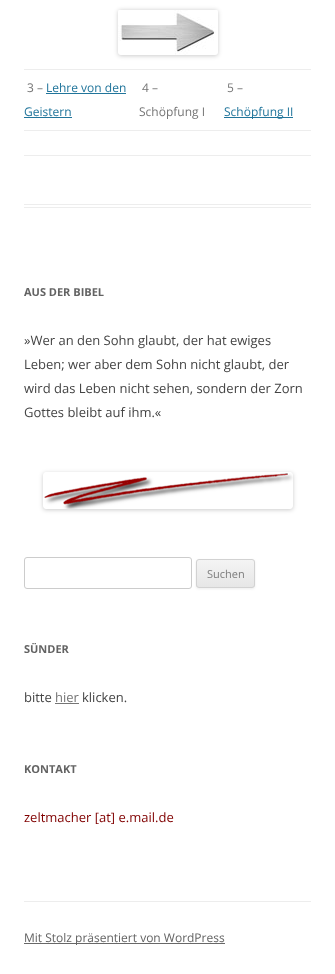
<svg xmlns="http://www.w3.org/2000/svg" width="335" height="974">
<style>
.a{font:12px Open Sans;fill:#757575}
.b{font:12px Open Sans;fill:#21759b}
.c{font:bold 11px Open Sans;fill:#636363}
.d{font:13px Open Sans;fill:#444}
.e{font:11px Open Sans;fill:#7c7c7c}
.f{font:13px Open Sans;fill:#757575}
.g{font:13px Open Sans;fill:#800000}
.h{font:12px Open Sans;fill:#636363}
</style>
<defs>
<clipPath id="clip1"><path d="M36 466h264v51h-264zm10 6h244c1.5 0 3 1.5 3 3v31c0 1.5-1.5 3-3 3h-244c-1.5 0-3-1.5-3-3v-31c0-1.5 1.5-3 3-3z" clip-rule="evenodd"/></clipPath>
<clipPath id="clip2"><rect x="196" y="559" width="59" height="29" rx="3"/></clipPath>
<linearGradient id="g1" gradientUnits="userSpaceOnUse" x1="226" y1="560" x2="226" y2="587"><stop offset="0" stop-color="#f4f4f4"/><stop offset="1" stop-color="#e6e6e6"/></linearGradient>
</defs>
<rect width="100%" height="100%" fill="#fff"/>
<path fill="#ededed" d="M24 204h287v1H24z"/>
<path fill="#ededed" d="M24 207h287v1H24z"/>
<rect fill="#00000033" filter="blur(2px)" x="118" y="10" width="100" height="46" rx="3"/>
<image href="1.png" x="118" y="10" width="100" height="45"/>
<path fill="#ededed" d="M24 155h287v1H24z"/>
<path fill="#ededed" d="M24 130h287v1H24z"/>
<path fill="#21759b" d="M46 93h80v1H46z"/>
<path fill="#21759b" d="M24 117h48v1H24z"/>
<path fill="#ededed" d="M24 69h287v1H24z"/>
<path fill="#21759b" d="M224 117h69v1H224z"/>
<g clip-path="url(#clip1)">
<rect fill="#00000033" filter="blur(2px)" x="43" y="473" width="250" height="37" rx="3"/>
</g>
<image href="2.png" x="44" y="473" width="249" height="36"/>
<rect fill="none" stroke="#ccc" x="24.5" y="557.5" width="167" height="31" rx="2.5"/>
<rect fill="#4040401a" filter="blur(1px)" x="196" y="560" width="59" height="29" rx="3"/>
<g clip-path="url(#clip2)">
<path fill="url(#g1)" d="M196 560h59v27H196z"/>
</g>
<rect fill="none" stroke="#d2d2d2" x="196.5" y="559.5" width="58" height="28" rx="2.5"/>
<path fill="#757575" d="M55 703h24v1H55z"/>
<path fill="#ededed" d="M24 901h287v1H24z"/>
<path fill="#686868" d="M24 943h201v1H24z"/>
<text class="a" x="27" y="92">3 –</text>
<text class="b" x="46" y="92">Lehre von den</text>
<text class="b" x="24" y="116">Geistern</text>
<text class="a" x="142" y="92">4 –</text>
<text class="a" x="139" y="116">Schöpfung I</text>
<text class="a" x="227" y="92">5 –</text>
<text class="b" x="224" y="116">Schöpfung II</text>
<text class="c" x="24" y="296">AUS DER BIBEL</text>
<text class="d" x="24" y="345">»Wer an den Sohn glaubt, der hat ewiges</text>
<text class="d" x="24" y="369">Leben; wer aber dem Sohn nicht glaubt, der</text>
<text class="d" x="24" y="393">wird das Leben nicht sehen, sondern der Zorn</text>
<text class="d" x="24" y="417">Gottes bleibt auf ihm.«</text>
<text class="e" x="207" y="578">Suchen</text>
<text class="c" x="24" y="653">SÜNDER</text>
<text class="d" x="24" y="702">bitte</text>
<text class="f" x="55" y="702">hier</text>
<text class="d" x="82" y="702">klicken.</text>
<text class="c" x="24" y="773">KONTAKT</text>
<text class="g" x="24" y="822">zeltmacher [at] e.mail.de</text>
<text class="h" x="24" y="942">Mit Stolz präsentiert von WordPress</text>
</svg>
